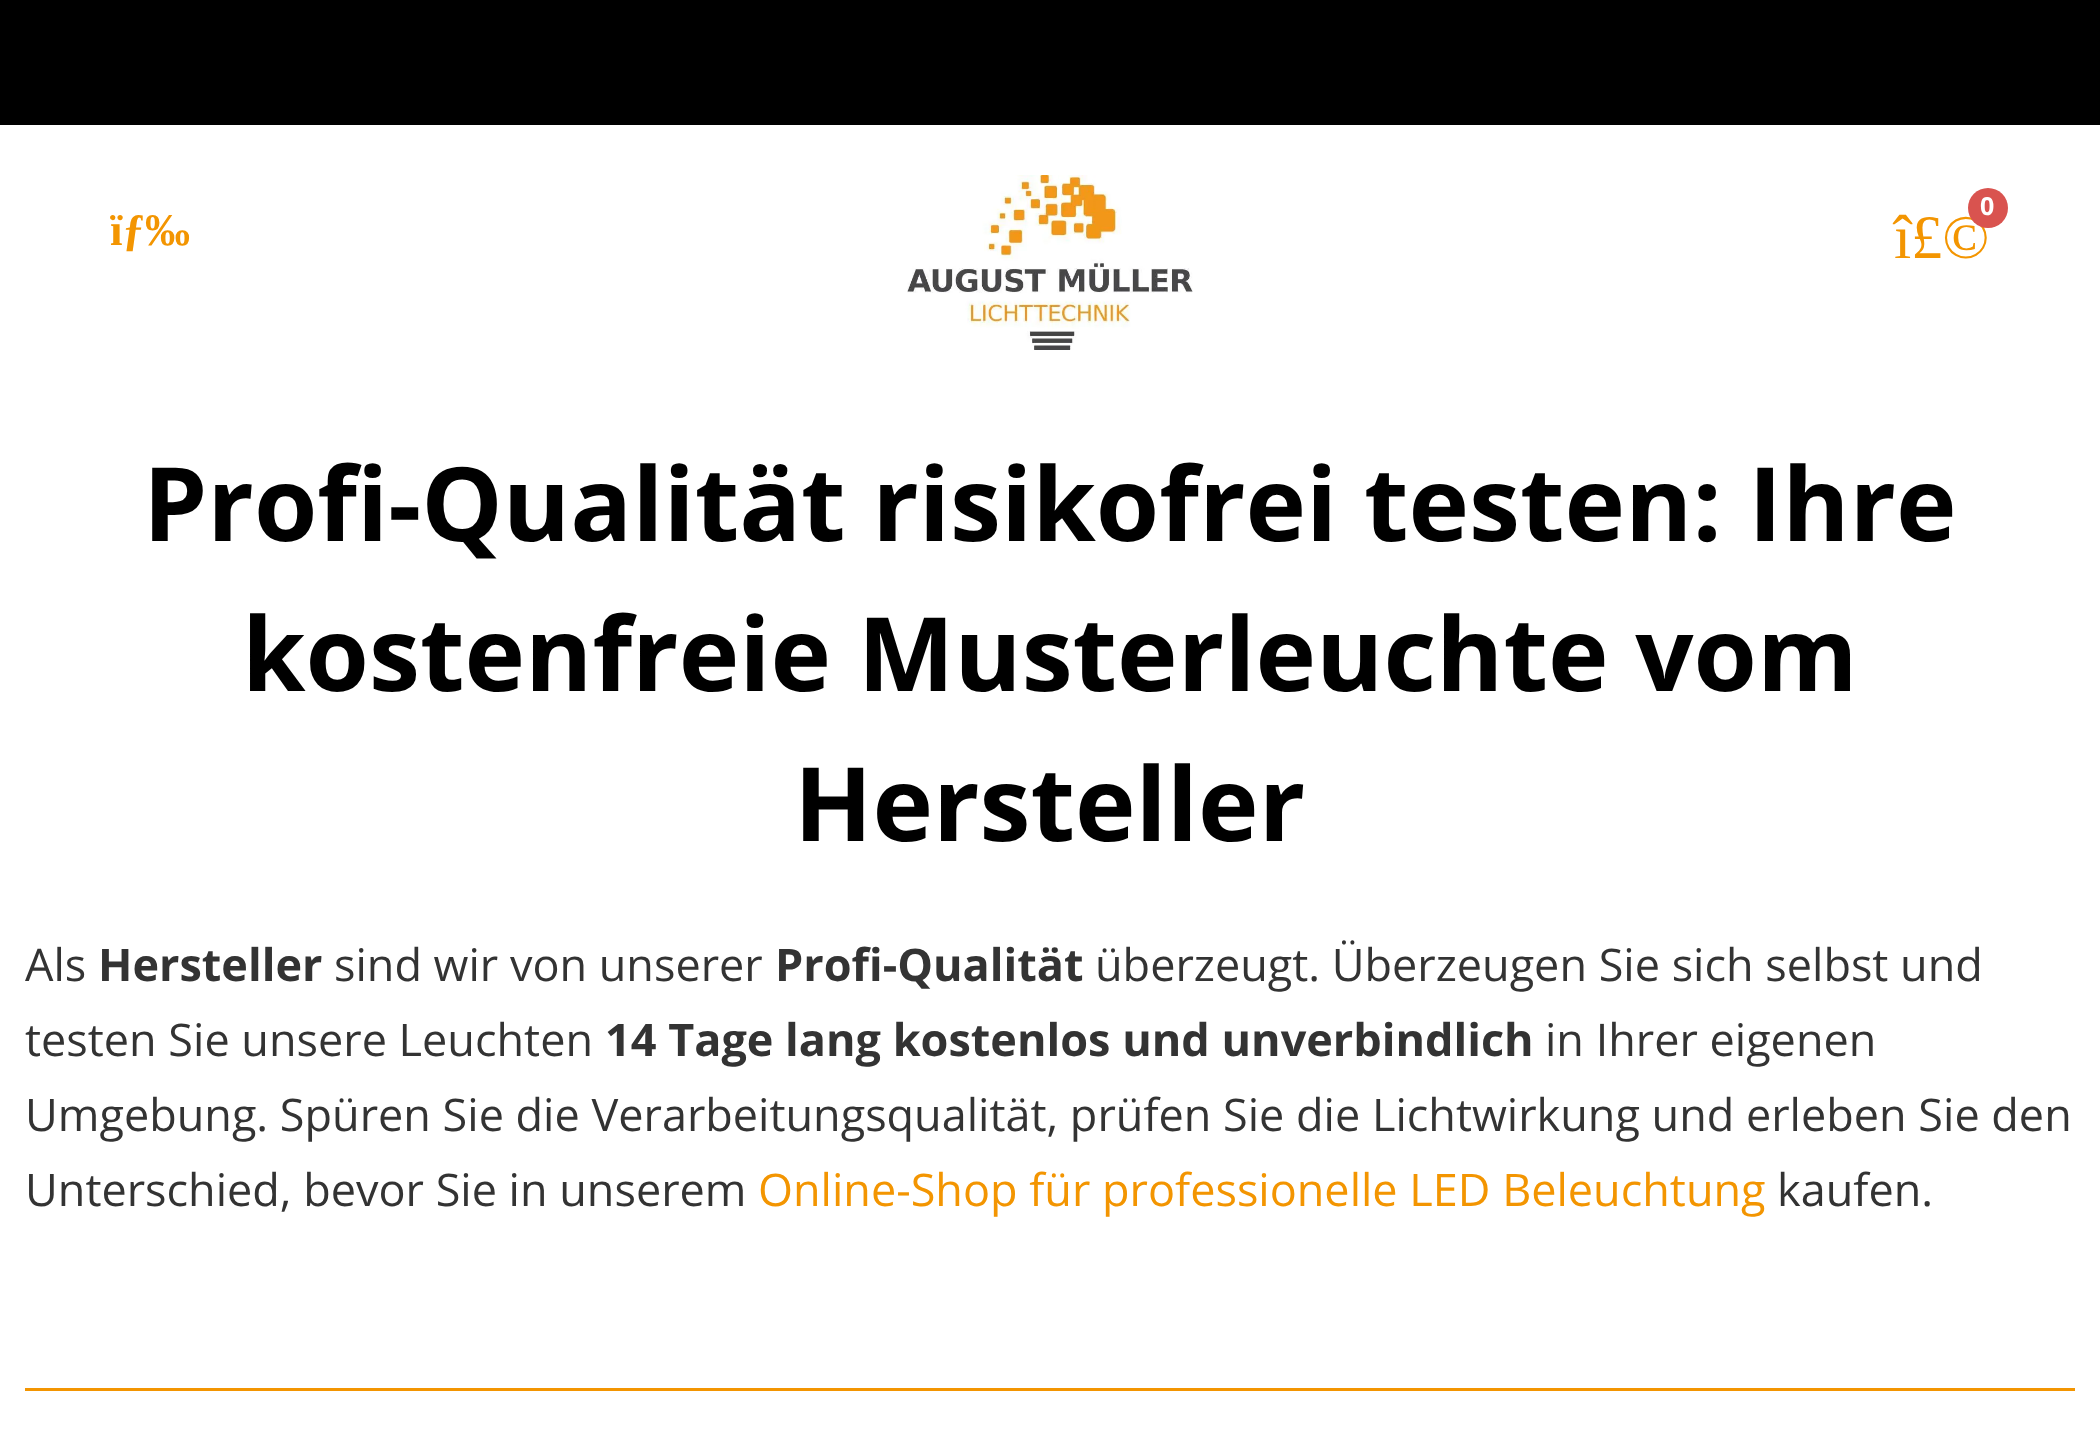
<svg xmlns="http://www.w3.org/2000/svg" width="2100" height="1455">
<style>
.a{font:bold 45px Liberation Serif;fill:#f39501}
.b{font:62px Liberation Serif;fill:#f39501}
.c{font:bold 25px Open Sans;fill:#fff}
.d{font:bold 102.5px Open Sans;fill:#000}
.e{font:45px Open Sans;fill:#333}
.f{font:bold 45px Open Sans;fill:#333}
.g{font:45px Open Sans;fill:#f39501}
</style>
<rect width="100%" height="100%" fill="#fff"/>
<path fill="#000" d="M0 0h2100v125H0z"/>
<image href="1.png" x="907" y="175" width="286" height="175"/>
<path fill="#f39501" d="M25 1388h2050v3H25z"/>
<text class="a" x="110" y="245">ïƒ‰</text>
<text class="b" x="1894" y="258">î£©</text>
<circle fill="#d9534f" cx="1988" cy="208" r="20"/>
<text class="c" x="1980" y="215">0</text>
<text class="d" x="143" y="541">Profi-Qualität risikofrei testen: Ihre</text>
<text class="d" x="242" y="691">kostenfreie Musterleuchte vom</text>
<text class="d" x="794" y="841">Hersteller</text>
<text class="e" x="25" y="981">Als</text>
<text class="f" x="98" y="981">Hersteller</text>
<text class="e" x="334" y="981">sind wir von unserer</text>
<text class="f" x="775" y="981">Profi-Qualität</text>
<text class="e" x="1095" y="981">überzeugt. Überzeugen Sie sich selbst und</text>
<text class="e" x="25" y="1056">testen Sie unsere Leuchten</text>
<text class="f" x="605" y="1056">14 Tage lang kostenlos und unverbindlich</text>
<text class="e" x="1545" y="1056">in Ihrer eigenen</text>
<text class="e" x="25" y="1131">Umgebung. Spüren Sie die Verarbeitungsqualität, prüfen Sie die Lichtwirkung und erleben Sie den</text>
<text class="e" x="25" y="1206">Unterschied, bevor Sie in unserem</text>
<text class="g" x="758" y="1206">Online-Shop für professionelle LED Beleuchtung</text>
<text class="e" x="1777" y="1206">kaufen.</text>
</svg>
